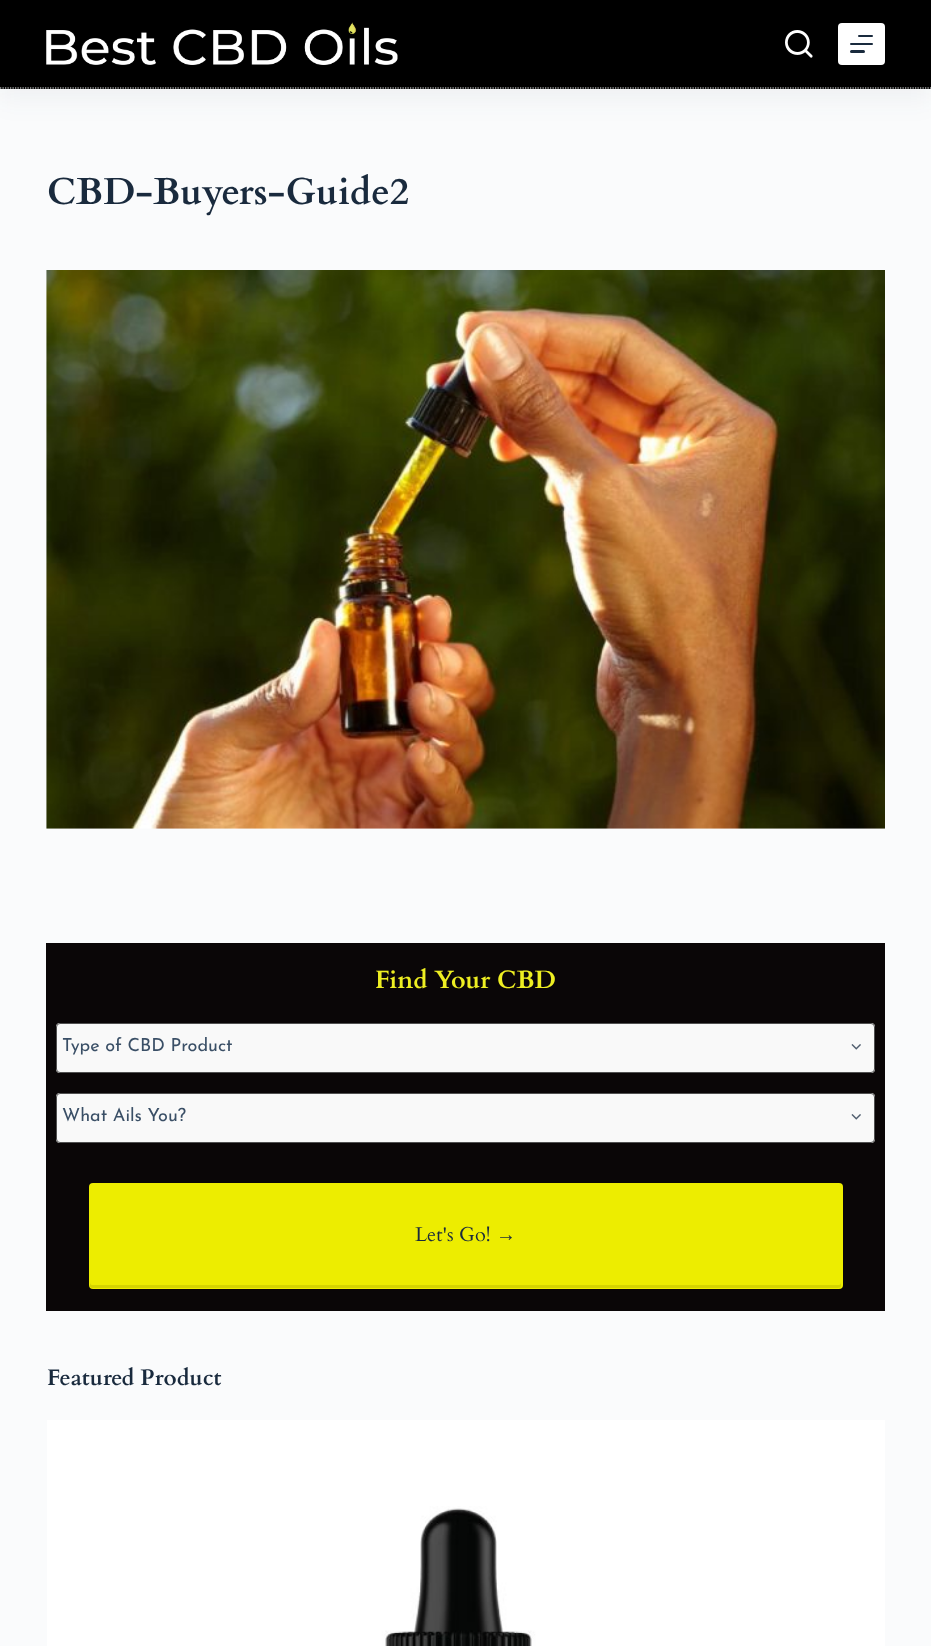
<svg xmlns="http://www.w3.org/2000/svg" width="931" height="1646">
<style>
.a{font:bold 37.5px Cardo;fill:#192a3d}
.b{font:bold 25px Cardo;fill:#ee2}
.c{font:18px Josefin Sans;fill:#3a4f66}
.d{font:20px Cardo;fill:#192a3d}
.e{font:20px Liberation Sans;fill:#192a3d}
.f{font:bold 22.5px Cardo;fill:#192a3d}
</style>
<rect width="100%" height="100%" fill="#fafbfc"/>
<path fill="#2c3e500d" filter="blur(12.5px)" d="M0 13h931v88H0z"/>
<path fill="#000" d="M0 0h931v89H0z"/>
<path fill="none" stroke="#fafbfc" stroke-width="1.2" stroke-dasharray="1.25 1.25" d="M0 88h931"/>
<image href="1.png" x="46" y="22" width="352" height="43"/>
<image href="2.png" x="785" y="30" width="28" height="28"/>
<rect fill="#fff" x="838" y="23" width="47" height="42" rx="4"/>
<rect fill="#192a3d" x="858" y="35" width="15" height="2" rx="1"/>
<rect fill="#192a3d" x="850" y="43" width="23" height="2" rx="1"/>
<rect fill="#192a3d" x="850" y="50" width="15" height="3" rx="1.5"/>
<image href="3.png" x="46" y="270" width="839" height="559"/>
<path fill="#0a0607" d="M46 943h839v368H46z"/>
<rect fill="#f9f9f9" x="56" y="1023" width="819" height="50" rx="4"/>
<image href="4.png" x="851" y="1044" width="10" height="6"/>
<rect fill="none" stroke="#515151" x="56.5" y="1023.5" width="818" height="49" rx="3.5"/>
<rect fill="#f9f9f9" x="56" y="1093" width="819" height="50" rx="4"/>
<image href="4.png" x="851" y="1114" width="10" height="6"/>
<rect fill="none" stroke="#515151" x="56.5" y="1093.5" width="818" height="49" rx="3.5"/>
<rect fill="#eded00" x="89" y="1183" width="754" height="106" rx="4"/>
<path fill="#d5d500" d="M90 1282v4c0 1 1 2 2 2h746c2 0 3-1 3-2v-4c0 2-1 3-2 3h-747c-1 0-2-1-2-3z"/>
<image href="5.png" x="47" y="1420" width="838" height="226"/>
<text class="a" x="47" y="204">CBD-Buyers-Guide2</text>
<text class="b" x="375" y="988">Find Your CBD</text>
<text class="c" x="62" y="1051">Type of CBD Product</text>
<text class="c" x="62" y="1121">What Ails You?</text>
<text class="d" x="415" y="1241">Let's Go!</text>
<text class="e" x="496" y="1241">→</text>
<text class="f" x="47" y="1385">Featured Product</text>
</svg>
